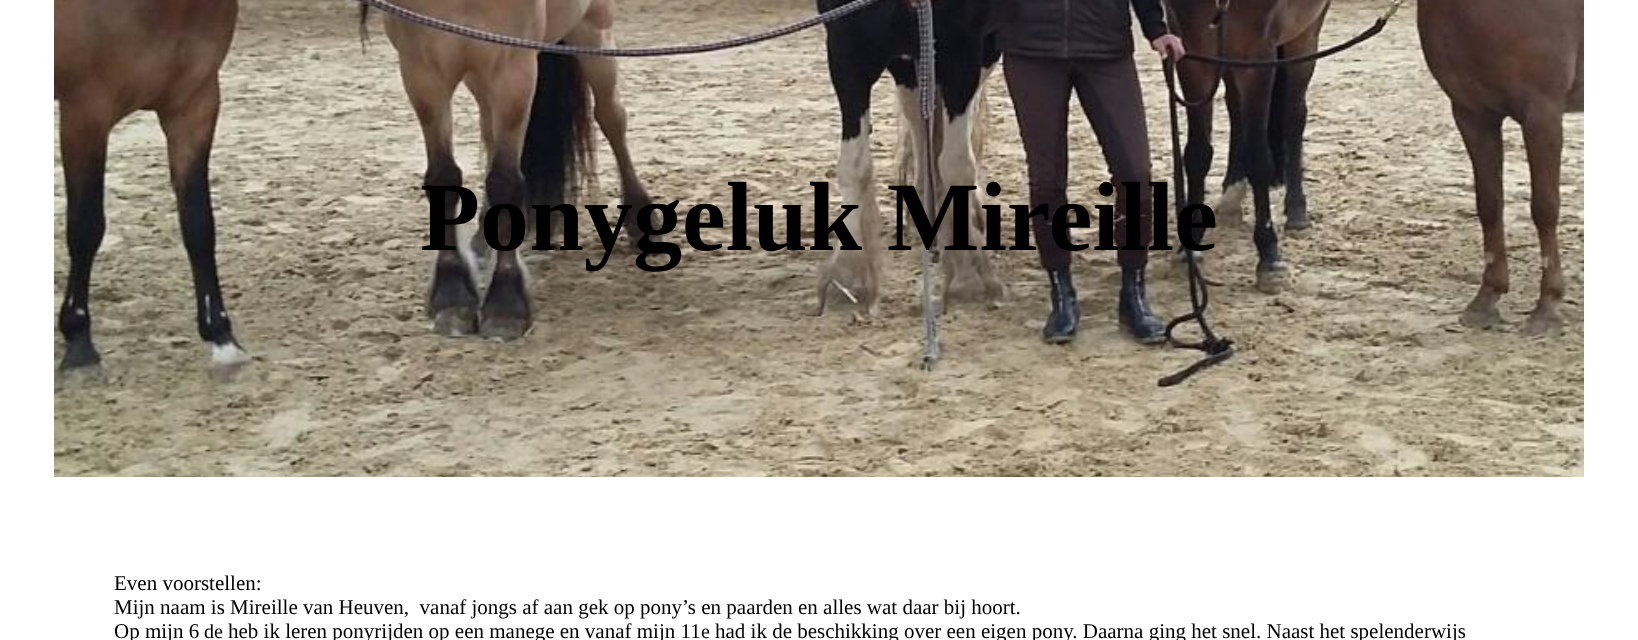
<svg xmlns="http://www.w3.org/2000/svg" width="1638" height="640">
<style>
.a{font:bold 98.25px Liberation Serif;fill:#000}
.b{font:21px Liberation Serif;fill:#000}
.c{font:20px Liberation Serif;fill:#000}
</style>
<rect width="100%" height="100%" fill="#fff"/>
<image href="1.png" x="54" y="0" width="1530" height="477"/>
<text class="a" x="420" y="250">Ponygeluk Mireille</text>
<text class="b" x="114" y="590">Even voorstellen:</text>
<text class="b" xml:space="preserve" x="114" y="614">Mijn naam is Mireille van Heuven,  vanaf jongs af aan gek op pony’s en paarden en alles wat daar bij hoort.</text>
<text class="b" x="114" y="638">Op mijn 6</text>
<text class="c" x="204" y="638">de</text>
<text class="b" x="228" y="638">heb ik leren ponyrijden op een manege en vanaf mijn 11</text>
<text class="c" x="701" y="638">e</text>
<text class="b" x="715" y="638">had ik de beschikking over een eigen pony. Daarna ging het snel. Naast het spelenderwijs</text>
</svg>
